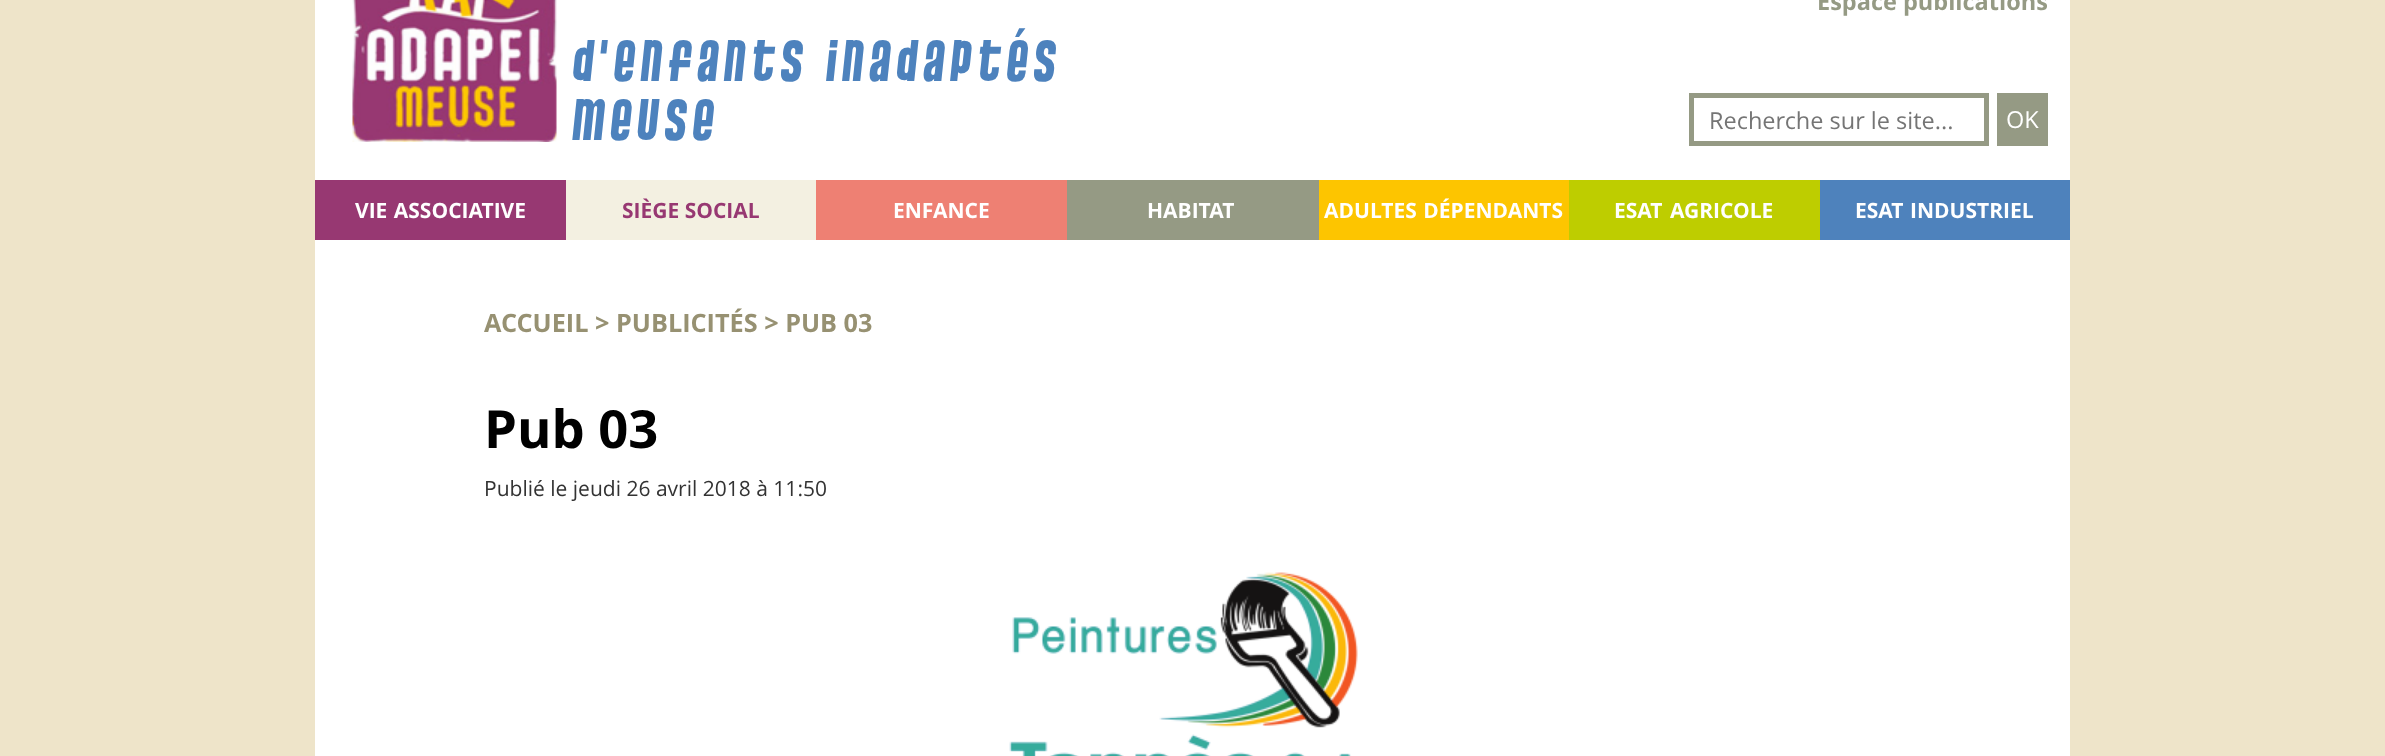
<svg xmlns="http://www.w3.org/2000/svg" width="2385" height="756">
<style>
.a{font:61.75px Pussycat;letter-spacing:6.2px;fill:#4d82bd}
.b{font:bold 23.5px Open Sans;fill:#959a84}
.c{font:23.5px Open Sans;fill:#757575}
.d{font:23.5px Open Sans;fill:#fff}
.e{font:bold 21px Open Sans;fill:#fff}
.f{font:bold 21px Open Sans;fill:#973872}
.g{font:bold 25.25px Open Sans;fill:#979172}
.h{font:bold 52.5px Open Sans;fill:#000}
.i{font:21px Open Sans;fill:#333}
</style>
<rect width="100%" height="100%" fill="#eee4c9"/>
<path fill="#fff" d="M315 0h1755v756H315z"/>
<image href="1.png" x="352" y="0" width="205" height="142"/>
<path fill="none" stroke="#959a84" stroke-width="5" d="M1691.5 95.5h295v48H1691.5z"/>
<path fill="#959a84" d="M1997 93h51v53H1997z"/>
<path fill="#973872" d="M315 180h251v60H315z"/>
<path fill="#f3f0e1" d="M566 180h250v60H566z"/>
<path fill="#ee8073" d="M816 180h251v60H816z"/>
<path fill="#959a84" d="M1067 180h252v60H1067z"/>
<path fill="#fdc500" d="M1319 180h250v60H1319z"/>
<path fill="#becd00" d="M1569 180h251v60H1569z"/>
<path fill="#4e82bc" d="M1820 180h250v60H1820z"/>
<image href="2.png" x="1009" y="572" width="349" height="184"/>
<text class="a" x="572" y="81">d'enfants inadaptés</text>
<text class="a" x="572" y="140">meuse</text>
<text class="b" x="1817" y="10">Espace publications</text>
<text class="c" x="1709" y="129">Recherche sur le site...</text>
<text class="d" x="2006" y="128">OK</text>
<text class="e" x="355" y="218" word-spacing="1">VIE ASSOCIATIVE</text>
<text class="f" x="622" y="218">SIÈGE SOCIAL</text>
<text class="e" x="893" y="218">ENFANCE</text>
<text class="e" x="1147" y="218">HABITAT</text>
<text class="e" x="1324" y="218" word-spacing="1">ADULTES DÉPENDANTS</text>
<text class="e" x="1614" y="218" word-spacing="2">ESAT AGRICOLE</text>
<text class="e" x="1855" y="218" word-spacing="1">ESAT INDUSTRIEL</text>
<text class="g" x="484" y="332">ACCUEIL</text>
<text class="g" x="595" y="332">&gt; PUBLICITÉS &gt; PUB 03</text>
<text class="h" x="484" y="448">Pub 03</text>
<text class="i" x="484" y="496">Publié le jeudi 26 avril 2018 à 11:50</text>
</svg>
